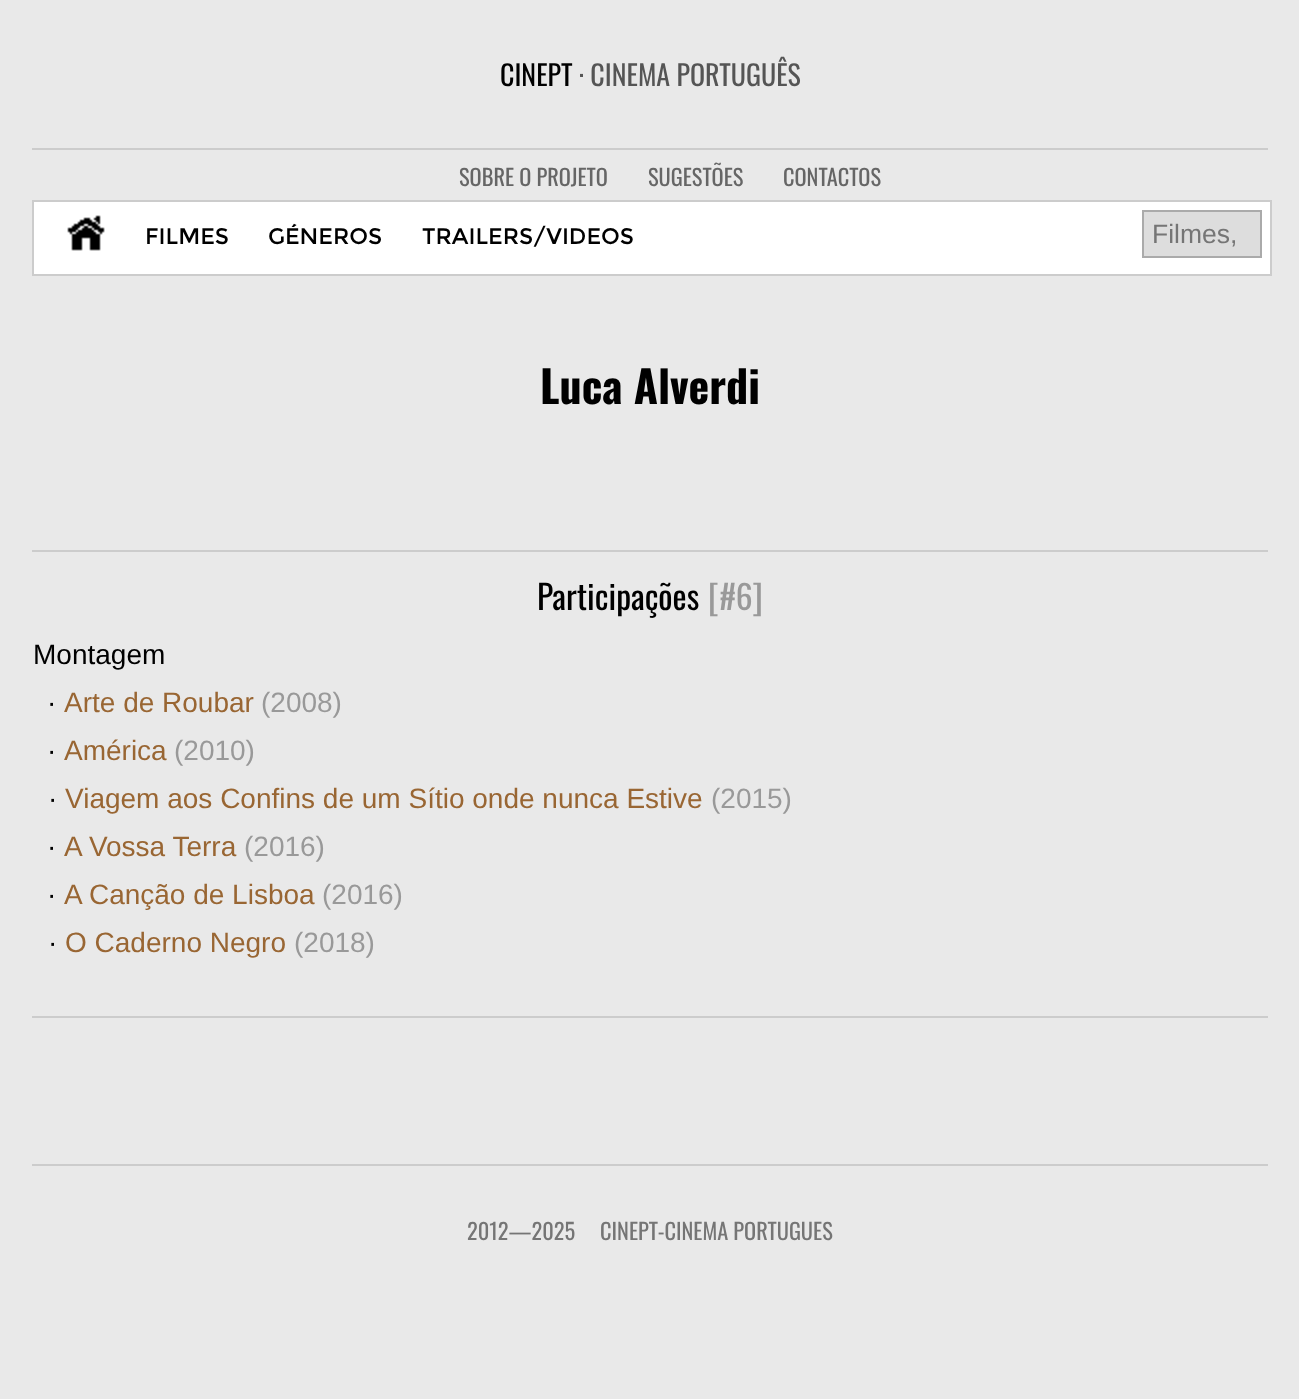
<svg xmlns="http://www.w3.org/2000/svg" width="1299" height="1399">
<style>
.a{font:28px Oswald;fill:#000}
.b{font:28px Oswald;fill:#555}
.c{font:22.4px Oswald;fill:#666}
.d{font:22.4px Montserrat;fill:#000}
.e{font:26.5px Liberation Sans;fill:#757575}
.f{font:bold 44px Oswald;fill:#000}
.g{font:33.5px Oswald;fill:#000}
.h{font:33.5px Oswald;fill:#999}
.i{font:28px Liberation Sans;fill:#000}
.j{font:28px Liberation Sans;fill:#963}
.k{font:28px Liberation Sans;fill:#999}
.l{font:22.4px Oswald;fill:#757575}
</style>
<rect width="100%" height="100%" fill="#e9e9e9"/>
<path fill="#ccc" d="M32 148h1236v2H32z"/>
<path fill="#fff" stroke="#ccc" stroke-width="2" d="M33 201h1238v74H33z"/>
<image href="1.png" x="67" y="215" width="38" height="36"/>
<path fill="#ddd" stroke="#aaa" stroke-width="2" d="M1143 211h118v46H1143z"/>
<path fill="#ccc" d="M32 550h1236v2H32z"/>
<path fill="#ccc" d="M32 1016h1236v2H32z"/>
<path fill="#ccc" d="M32 1164h1236v2H32z"/>
<text class="a" x="500" y="86">CINEPT</text>
<text class="b" x="579" y="86">· CINEMA PORTUGUÊS</text>
<text class="c" x="459" y="186">SOBRE O PROJETO</text>
<text class="c" x="648" y="186">SUGESTÕES</text>
<text class="c" x="783" y="186">CONTACTOS</text>
<text class="d" x="145" y="244">FILMES</text>
<text class="d" x="268" y="244">GÉNEROS</text>
<text class="d" x="422" y="244">TRAILERS/VIDEOS</text>
<text class="e" x="1152" y="243">Filmes,</text>
<text class="f" x="540" y="404">Luca Alverdi</text>
<text class="g" x="537" y="610">Participações</text>
<text class="h" x="708" y="610">[#6]</text>
<text class="i" x="33" y="664">Montagem</text>
<text class="i" x="47" y="712">·</text>
<text class="j" x="64" y="712">Arte de Roubar</text>
<text class="k" x="261" y="712">(2008)</text>
<text class="i" x="47" y="760">·</text>
<text class="j" x="64" y="760">América</text>
<text class="k" x="174" y="760">(2010)</text>
<text class="i" x="48" y="808">·</text>
<text class="j" x="65" y="808">Viagem aos Confins de um Sítio onde nunca Estive</text>
<text class="k" x="711" y="808">(2015)</text>
<text class="i" x="47" y="856">·</text>
<text class="j" x="64" y="856">A Vossa Terra</text>
<text class="k" x="244" y="856">(2016)</text>
<text class="i" x="47" y="904">·</text>
<text class="j" x="64" y="904">A Canção de Lisboa</text>
<text class="k" x="322" y="904">(2016)</text>
<text class="i" x="48" y="952">·</text>
<text class="j" x="65" y="952">O Caderno Negro</text>
<text class="k" x="294" y="952">(2018)</text>
<text class="l" x="467" y="1240">2012—2025</text>
<text class="l" x="600" y="1240">CINEPT-CINEMA PORTUGUES</text>
</svg>
